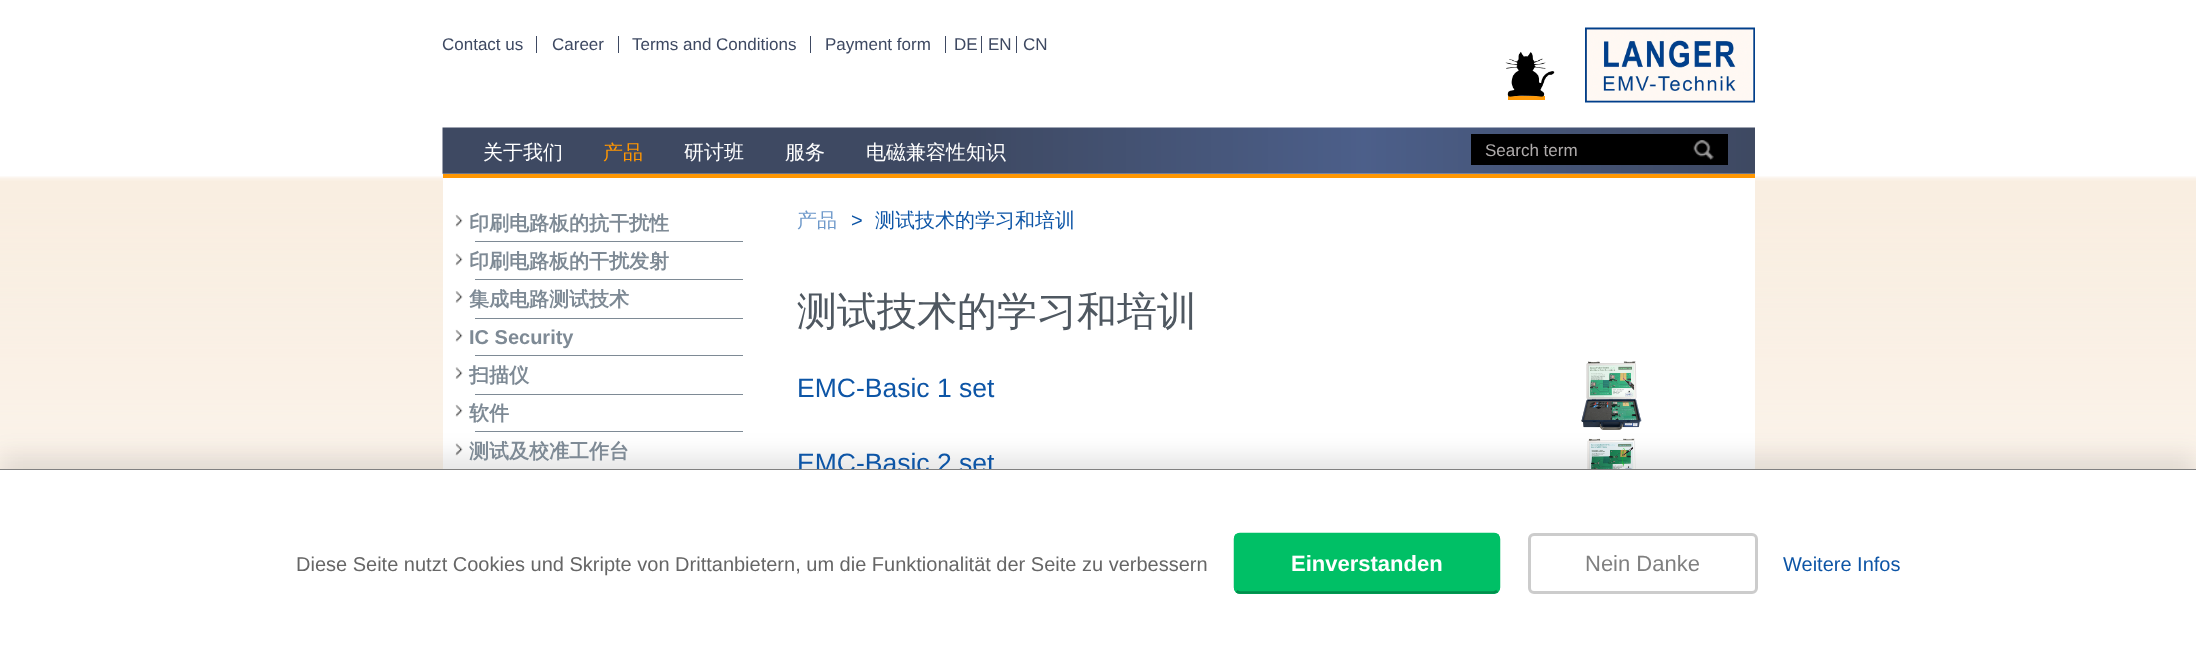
<svg xmlns="http://www.w3.org/2000/svg" width="2196" height="656">
<style>
.a{font:17px Liberation Sans;fill:#3e4962}
.b{font:500 20px WenQuanYi Zen Hei;fill:#fff}
.c{font:500 20px WenQuanYi Zen Hei;fill:#ff9702}
.d{font:17px Liberation Sans;fill:#afabab}
.e{font:bold 20px WenQuanYi Zen Hei;fill:#7e8a95}
.f{font:bold 20px Liberation Sans;fill:#7e8a95}
.g{font:500 20px WenQuanYi Zen Hei;fill:#6e99ca}
.h{font:20px Liberation Sans;fill:#0d55a6}
.i{font:500 20px WenQuanYi Zen Hei;fill:#0d55a6}
.j{font:500 40px WenQuanYi Zen Hei;fill:#4f5861}
.k{font:26.5px Liberation Sans;fill:#0d55a6}
.l{font:20px Liberation Sans;fill:#666}
.m{font:bold 22px Liberation Sans;fill:#fff}
.n{font:22px Liberation Sans;fill:#808080}
</style>
<rect width="100%" height="100%" fill="#fff"/>
<image href="11.png" x="0" y="176" width="2196" height="293"/>
<path fill="#fff" d="M443 176h1312v293H443z"/>
<path fill="#ff9702" d="M443 174h1312v4H443z"/>
<path fill="#3e4962" d="M536 36h1v17H536z"/>
<path fill="#3e4962" d="M618 36h1v17H618z"/>
<path fill="#3e4962" d="M810 36h1v17H810z"/>
<path fill="#3e4962" d="M945 36h1v17H945z"/>
<path fill="#3e4962" d="M981 36h1v17H981z"/>
<path fill="#3e4962" d="M1016 36h1v17H1016z"/>
<path fill="#ff9702" d="M1508 96h37v4H1508z"/>
<image href="1.png" x="1505" y="51" width="50" height="49"/>
<image href="2.png" x="1585" y="27" width="170" height="76"/>
<image href="3.png" x="442" y="127" width="1313" height="47"/>
<path fill="#000" d="M1471 134h257v31H1471z"/>
<image href="4.png" x="1693" y="140" width="21" height="20"/>
<image href="5.png" x="455" y="214" width="8" height="13"/>
<path fill="#7e8a95" d="M475 241h268v1H475z"/>
<image href="6.png" x="455" y="253" width="8" height="13"/>
<path fill="#7e8a95" d="M475 279h268v1H475z"/>
<image href="7.png" x="455" y="291" width="8" height="12"/>
<path fill="#7e8a95" d="M475 318h268v1H475z"/>
<image href="5.png" x="455" y="329" width="8" height="13"/>
<path fill="#7e8a95" d="M475 355h268v1H475z"/>
<image href="8.png" x="455" y="367" width="8" height="12"/>
<path fill="#7e8a95" d="M475 394h268v1H475z"/>
<image href="5.png" x="455" y="404" width="8" height="13"/>
<path fill="#7e8a95" d="M475 431h268v1H475z"/>
<image href="6.png" x="455" y="443" width="8" height="13"/>
<image href="9.png" x="1581" y="361" width="61" height="69"/>
<image href="10.png" x="1582" y="438" width="59" height="31"/>
<path fill="#0000001a" filter="blur(12.5px)" d="M0 456h2196v188H0z"/>
<text class="a" x="442" y="50">Contact us</text>
<text class="a" x="552" y="50">Career</text>
<text class="a" x="632" y="50">Terms and Conditions</text>
<text class="a" x="825" y="50">Payment form</text>
<text class="a" x="954" y="50">DE</text>
<text class="a" x="988" y="50">EN</text>
<text class="a" x="1023" y="50">CN</text>
<text class="b" x="483" y="159">关于我们</text>
<text class="c" x="603" y="159">产品</text>
<text class="b" x="684" y="159">研讨班</text>
<text class="b" x="785" y="159">服务</text>
<text class="b" x="866" y="159">电磁兼容性知识</text>
<text class="d" x="1485" y="156">Search term</text>
<text class="e" x="469" y="230">印刷电路板的抗干扰性</text>
<text class="e" x="469" y="268">印刷电路板的干扰发射</text>
<text class="e" x="469" y="306">集成电路测试技术</text>
<text class="f" x="469" y="344">IC Security</text>
<text class="e" x="469" y="382">扫描仪</text>
<text class="e" x="469" y="420">软件</text>
<text class="e" x="469" y="458">测试及校准工作台</text>
<text class="g" x="797" y="227">产品</text>
<text class="h" x="851" y="227">&gt;</text>
<text class="i" x="875" y="227">测试技术的学习和培训</text>
<text class="j" x="797" y="325">测试技术的学习和培训</text>
<text class="k" x="797" y="397">EMC-Basic 1 set</text>
<text class="k" x="797" y="472">EMC-Basic 2 set</text>
<path fill="#fff" d="M0 470h2196v186H0z"/>
<path fill="#808080" d="M0 469h2196v1H0z"/>
<text class="l" x="296" y="571">Diese Seite nutzt Cookies und Skripte von Drittanbietern, um die Funktionalität der Seite zu verbessern</text>
<rect fill="#00c066" x="1234" y="533" width="266" height="61" rx="6"/>
<path fill="none" stroke="#028d4c" stroke-width="2.5" d="M1497.5 591l-3.5 1.5h-254c-1.5 0-2.5-.5-3.5-1.5"/>
<path fill="none" stroke="#00c066" stroke-width="2.5" d="M1236.5 591c-1-1-1.5-2-1.5-3.5v-48.5c0-1.5 .5-3 1.5-4c1-.5 2-1 3.5-1h254c1 0 2.5 .5 3.5 1c.5 1 1.5 2.5 1.5 4v48.5c0 1.5-1 2.5-1.5 3.5"/>
<text class="m" x="1291" y="571">Einverstanden</text>
<rect fill="none" stroke="#ccc" stroke-width="3" x="1529.5" y="534.5" width="227" height="58" rx="4.5"/>
<text class="n" x="1585" y="571">Nein Danke</text>
<text class="h" x="1783" y="571">Weitere Infos</text>
</svg>
